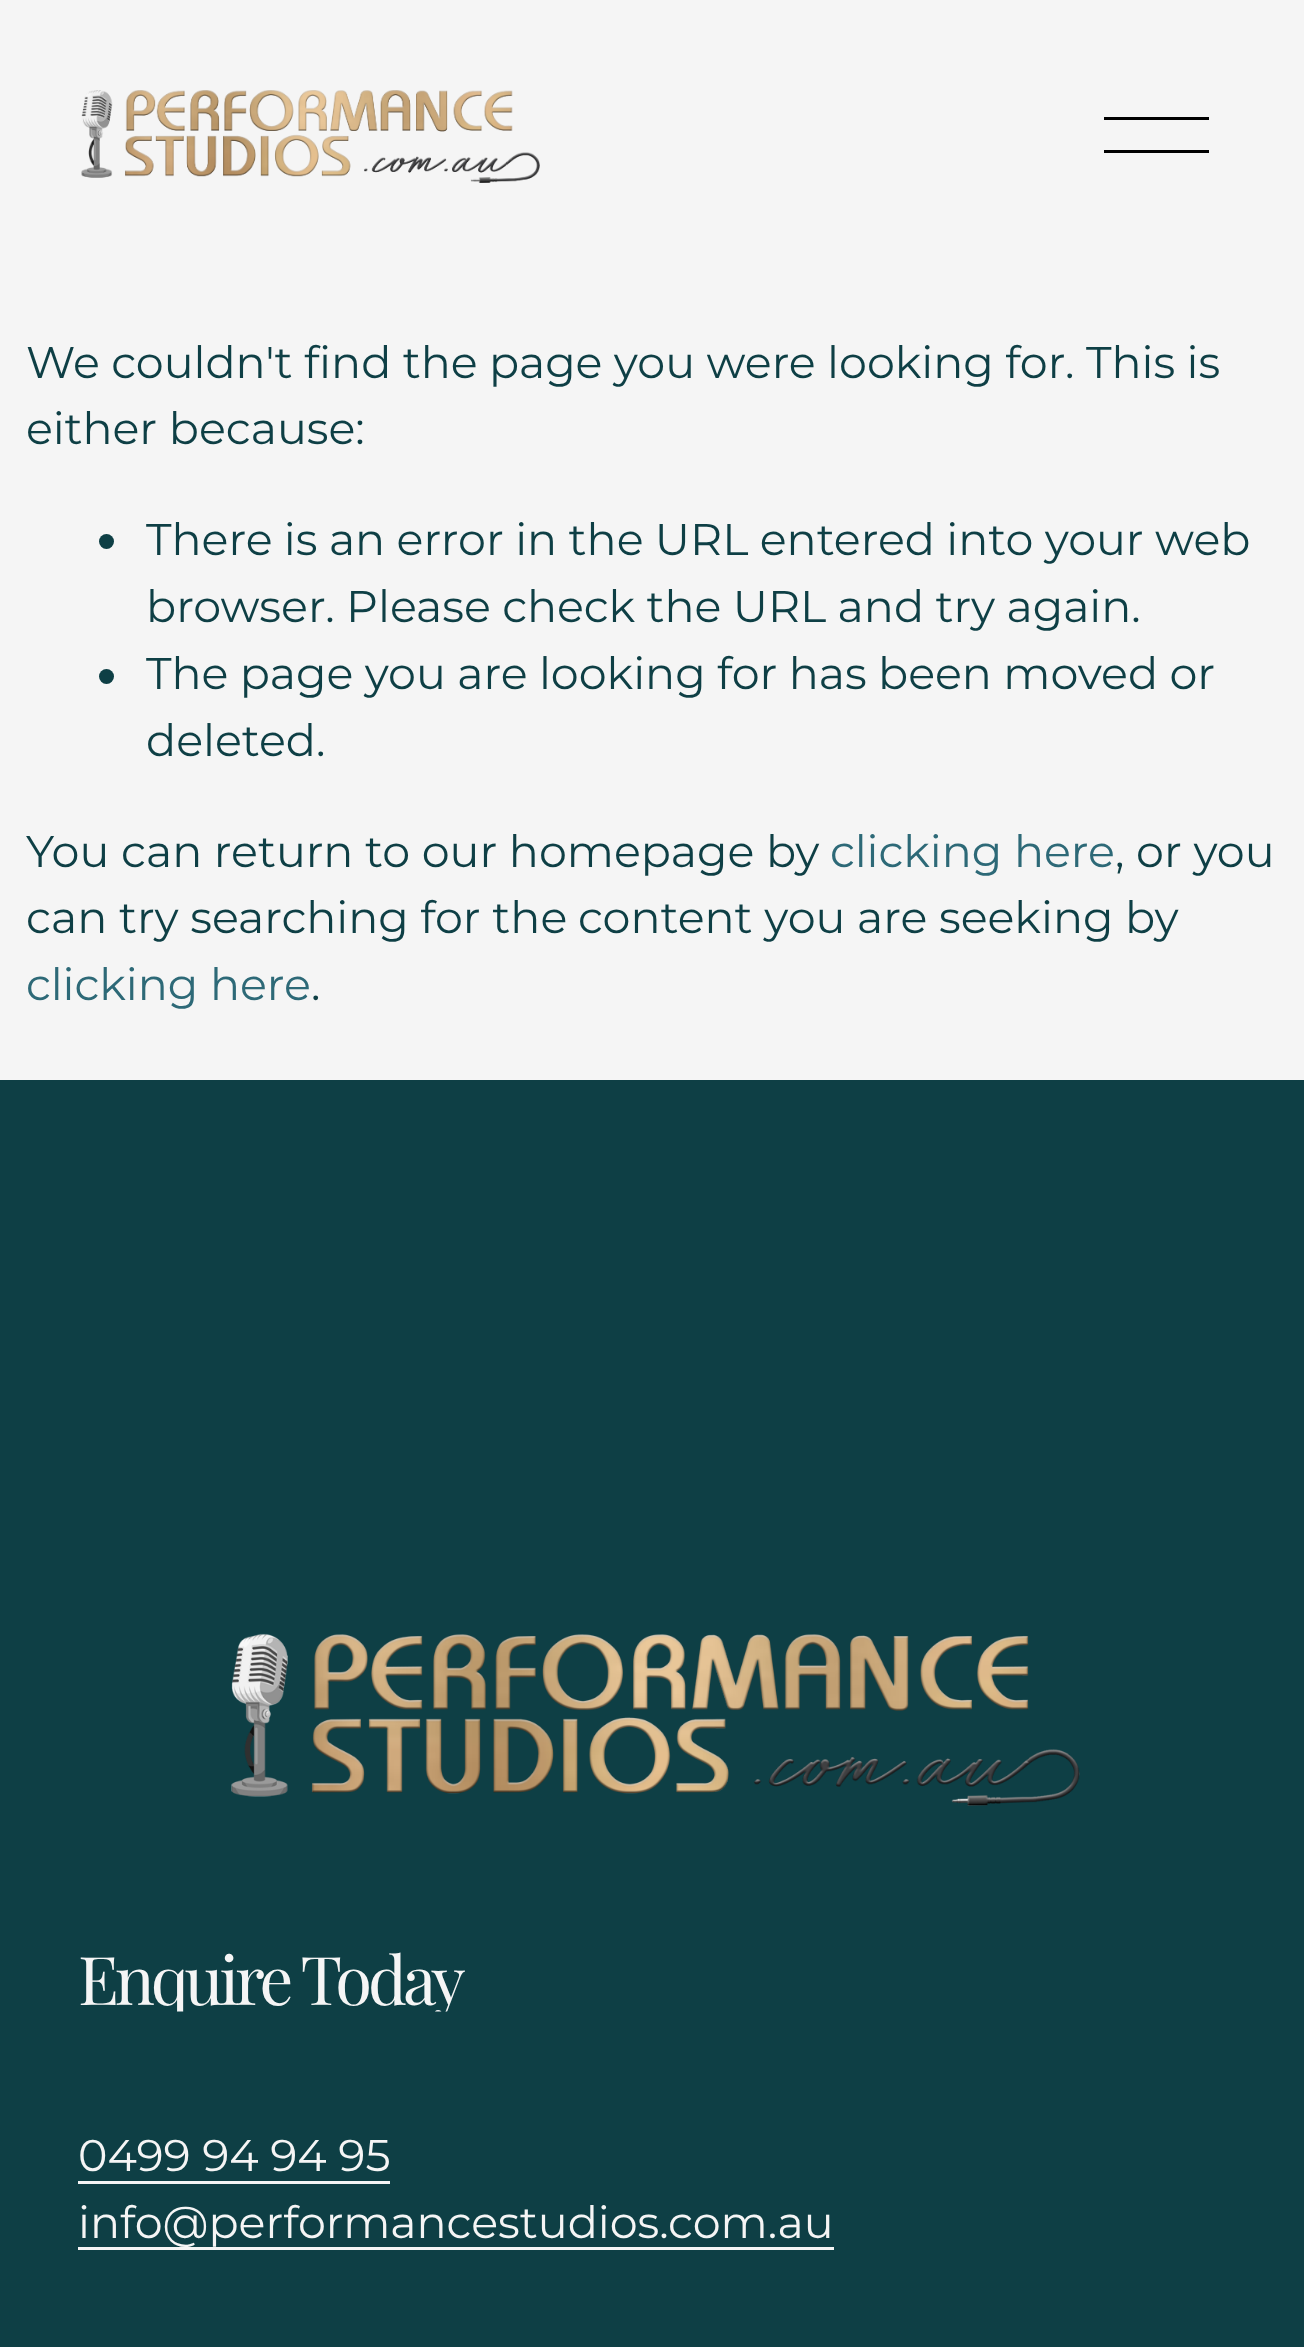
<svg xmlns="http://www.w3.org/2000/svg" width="1304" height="2347">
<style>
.a{font:44.45px Montserrat;fill:#0e3f45}
.b{font:44.45px Montserrat;fill:#2d6977}
.c{font:67px Playfair Display;letter-spacing:-4px;fill:#f5f5f5}
.d{font:44.45px Montserrat;fill:#f5f5f5}
</style>
<defs>
<clipPath id="clip1"><path d="M78.5 1947.5h1148v64h-1148z"/></clipPath>
</defs>
<rect width="100%" height="100%" fill="#f5f5f5"/>
<image href="1.png" x="81" y="90" width="459" height="93"/>
<path fill="#000" d="M1104 117h105v3H1104z"/>
<path fill="#000" d="M1104 150h105v3H1104z"/>
<circle fill="#0e3f45" cx="106.5" cy="541.5" r="7.5"/>
<circle fill="#0e3f45" cx="106.5" cy="676.5" r="7.5"/>
<path fill="#0e3f45" d="M0 1080h1304v1267H0z"/>
<image href="2.png" x="231" y="1633" width="849" height="173"/>
<path fill="#f5f5f5" d="M78 2181h312v3H78z"/>
<path fill="#f5f5f5" d="M78 2247h756v3H78z"/>
<text class="a" x="26" y="378" word-spacing="-0.25">We couldn't find the page you were looking for. This is</text>
<text class="a" x="26" y="444">either because:</text>
<text class="a" x="146" y="555" word-spacing="-0.25">There is an error in the URL entered into your web</text>
<text class="a" x="146" y="622" word-spacing="-0.25">browser. Please check the URL and try again.</text>
<text class="a" x="146" y="689" word-spacing="-0.25">The page you are looking for has been moved or</text>
<text class="a" x="146" y="756">deleted.</text>
<text class="a" x="26" y="867">You can return to our homepage by</text>
<text class="b" x="830" y="867">clicking here</text>
<text class="a" x="1115" y="867">, or you</text>
<text class="a" x="26" y="933">can try searching for the</text>
<text class="a" x="578" y="933">content you are seeking by</text>
<text class="b" x="26" y="1000">clicking here</text>
<text class="a" x="311" y="1000">.</text>
<g clip-path="url(#clip1)">
<text class="c" x="78" y="2005">Enquire Today</text>
</g>
<text class="d" x="78" y="2171">0499 94 94 95</text>
<text class="d" x="78" y="2238">info@performancestudios.com.au</text>
</svg>
